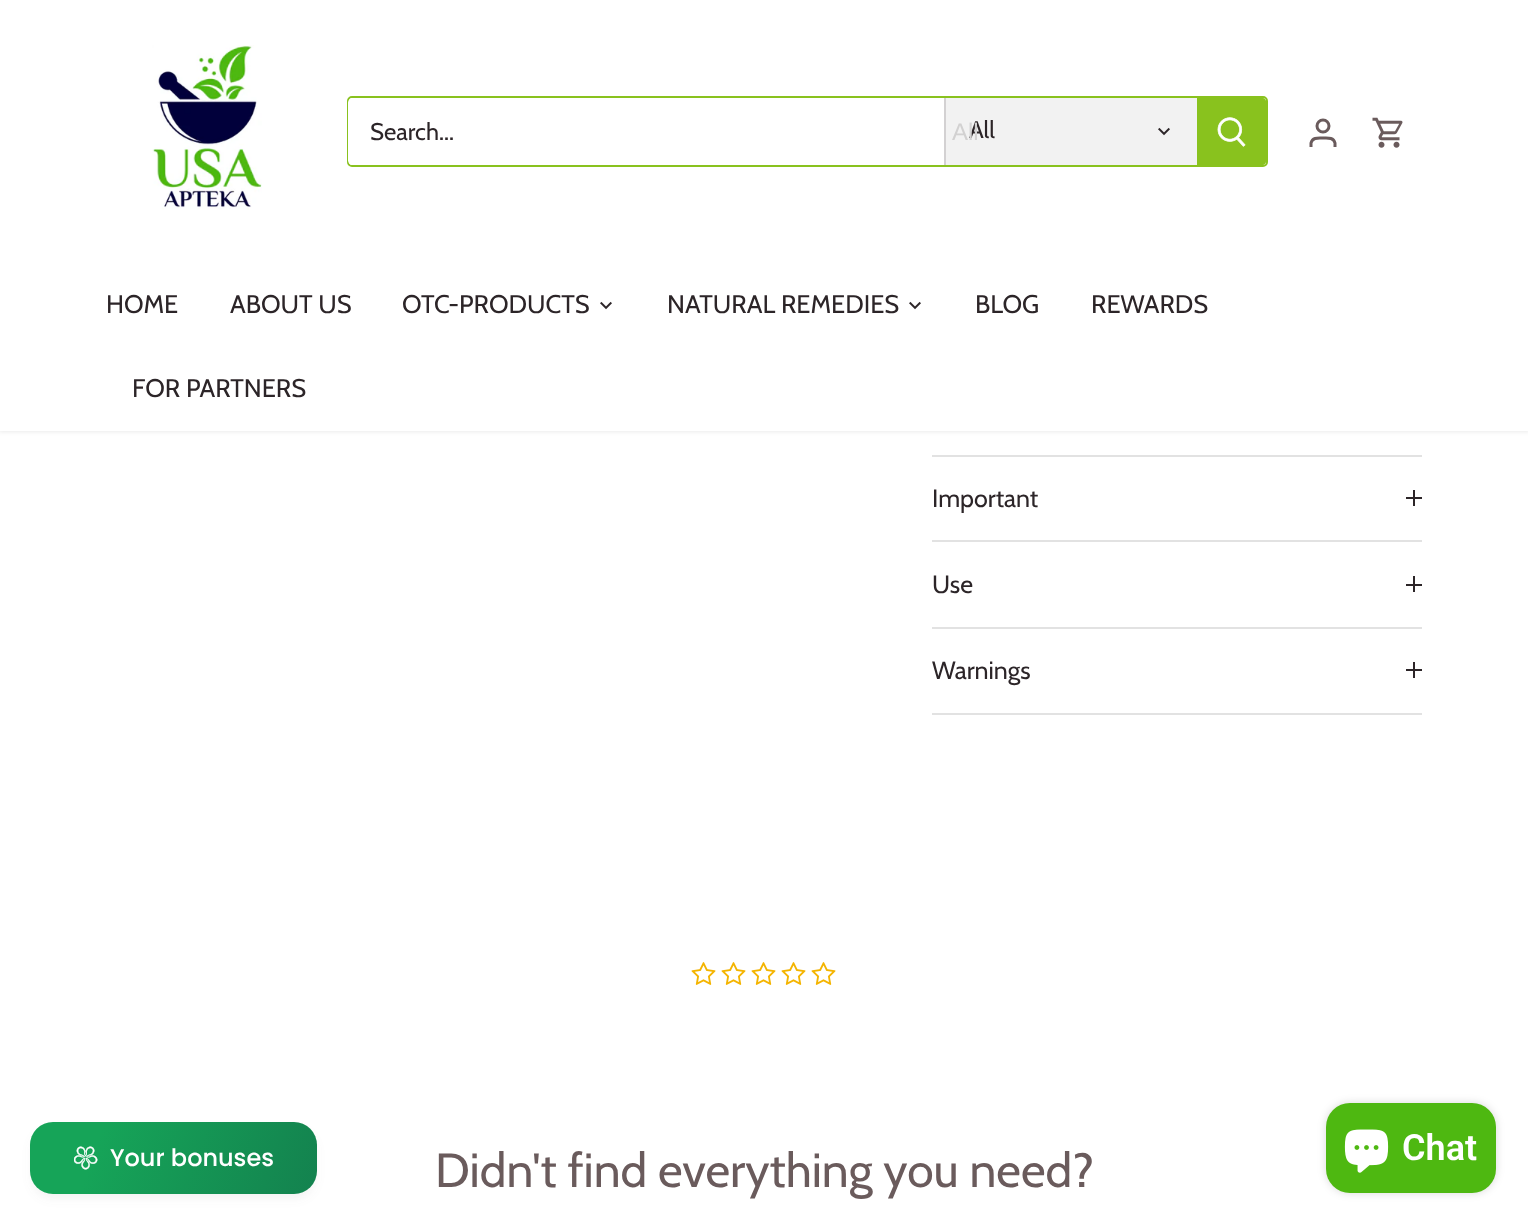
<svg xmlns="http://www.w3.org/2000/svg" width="1528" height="1223">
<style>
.a{font:24px Cabin;fill:#2c2528}
.b{font:24px Liberation Sans;fill:#d2d1d1}
.c{font:25.5px Cabin;fill:#2c2528}
.d{font:25px Cabin;fill:#2c2528}
.e{font:48px Cabin;fill:#6a5b5c}
.f{font:600 36px Roboto;fill:#fff}
.g{font:500 24px Poppins;fill:#fff}
</style>
<defs>
<linearGradient id="g1" gradientUnits="userSpaceOnUse" x1="35" y1="1109" x2="423" y2="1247"><stop offset="0.17" stop-color="#16a458"/><stop offset="1" stop-color="#12704a"/></linearGradient>
</defs>
<rect width="100%" height="100%" fill="#fff"/>
<path fill="#00000014" filter="blur(2px)" d="M-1 -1h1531v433H-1z"/>
<path fill="#fff" d="M0 0h1528v431H0z"/>
<image href="1.png" x="152" y="45" width="110" height="165"/>
<rect fill="none" stroke="#89c21e" stroke-width="2" x="348" y="97" width="919" height="69" rx="4"/>
<path fill="#fff" d="M353 98h591v67h-591c-3 0-5-2-5-5v-57c0-3 2-5 5-5z"/>
<path fill="#f2f2f2" d="M946 98h251v67H946z"/>
<path fill="#d3d1d2" d="M944 98h2v67H944z"/>
<image href="2.png" x="1158" y="127" width="12" height="9"/>
<path fill="#89c21e" d="M1197 98h66c1.5 0 3 1.5 3 3v61c0 1.5-1.5 3-3 3h-66z"/>
<image href="3.png" x="1217" y="117" width="29" height="30"/>
<circle fill="none" stroke="#6a5b5c" stroke-width="3" cx="1323" cy="126" r="6"/>
<path fill="none" stroke="#6a5b5c" stroke-width="3" d="M1335 147v-4c-1.5-6-7.5-5-12-5c-4.5 0-10.5-1-12 5v4"/>
<image href="4.png" x="1372" y="117" width="31" height="31"/>
<image href="5.png" x="600" y="301" width="12" height="9"/>
<image href="5.png" x="909" y="301" width="12" height="9"/>
<path fill="#e2e2e2" d="M932 455h490v2H932z"/>
<path fill="#e2e2e2" d="M932 540h490v2H932z"/>
<path fill="#2c2528" d="M1413 490h2v16H1413z"/>
<path fill="#2c2528" d="M1406 497h16v2H1406z"/>
<path fill="#e2e2e2" d="M932 627h490v2H932z"/>
<path fill="#2c2528" d="M1413 576h2v16H1413z"/>
<path fill="#2c2528" d="M1406 584h16v2H1406z"/>
<path fill="#e2e2e2" d="M932 713h490v2H932z"/>
<path fill="#2c2528" d="M1413 662h2v16H1413z"/>
<path fill="#2c2528" d="M1406 669h16v2H1406z"/>
<image href="6.png" x="691" y="962" width="25" height="23"/>
<image href="6.png" x="721" y="962" width="25" height="23"/>
<image href="6.png" x="751" y="962" width="25" height="23"/>
<image href="6.png" x="781" y="962" width="25" height="23"/>
<image href="6.png" x="811" y="962" width="25" height="23"/>
<rect fill="#00000026" filter="blur(4px)" x="1326" y="1103" width="170" height="90" rx="24"/>
<rect fill="#4eb811" x="1326" y="1103" width="170" height="90" rx="24"/>
<image href="7.png" x="1344" y="1129" width="45" height="44"/>
<rect fill="#44444414" filter="blur(6px)" x="33" y="1131" width="281" height="66" rx="20"/>
<rect fill="url(#g1)" x="30" y="1122" width="287" height="72" rx="23"/>
<image href="8.png" x="74" y="1146" width="24" height="24"/>
<text class="a" x="370" y="140">Search...</text>
<text class="a" x="969" y="138">All</text>
<text class="b" x="952" y="140">All</text>
<text class="c" x="106" y="313">HOME</text>
<text class="c" x="230" y="313">ABOUT US</text>
<text class="c" x="402" y="313">OTC-PRODUCTS</text>
<text class="c" x="667" y="313">NATURAL REMEDIES</text>
<text class="c" x="975" y="313">BLOG</text>
<text class="c" x="1091" y="313">REWARDS</text>
<text class="c" x="132" y="397">FOR PARTNERS</text>
<text class="d" x="932" y="507">Important</text>
<text class="d" x="932" y="593">Use</text>
<text class="d" x="932" y="679">Warnings</text>
<text class="e" x="435" y="1187">Didn't find everything you need?</text>
<text class="f" x="1402" y="1160">Chat</text>
<text class="g" x="110" y="1166">Your bonuses</text>
</svg>
